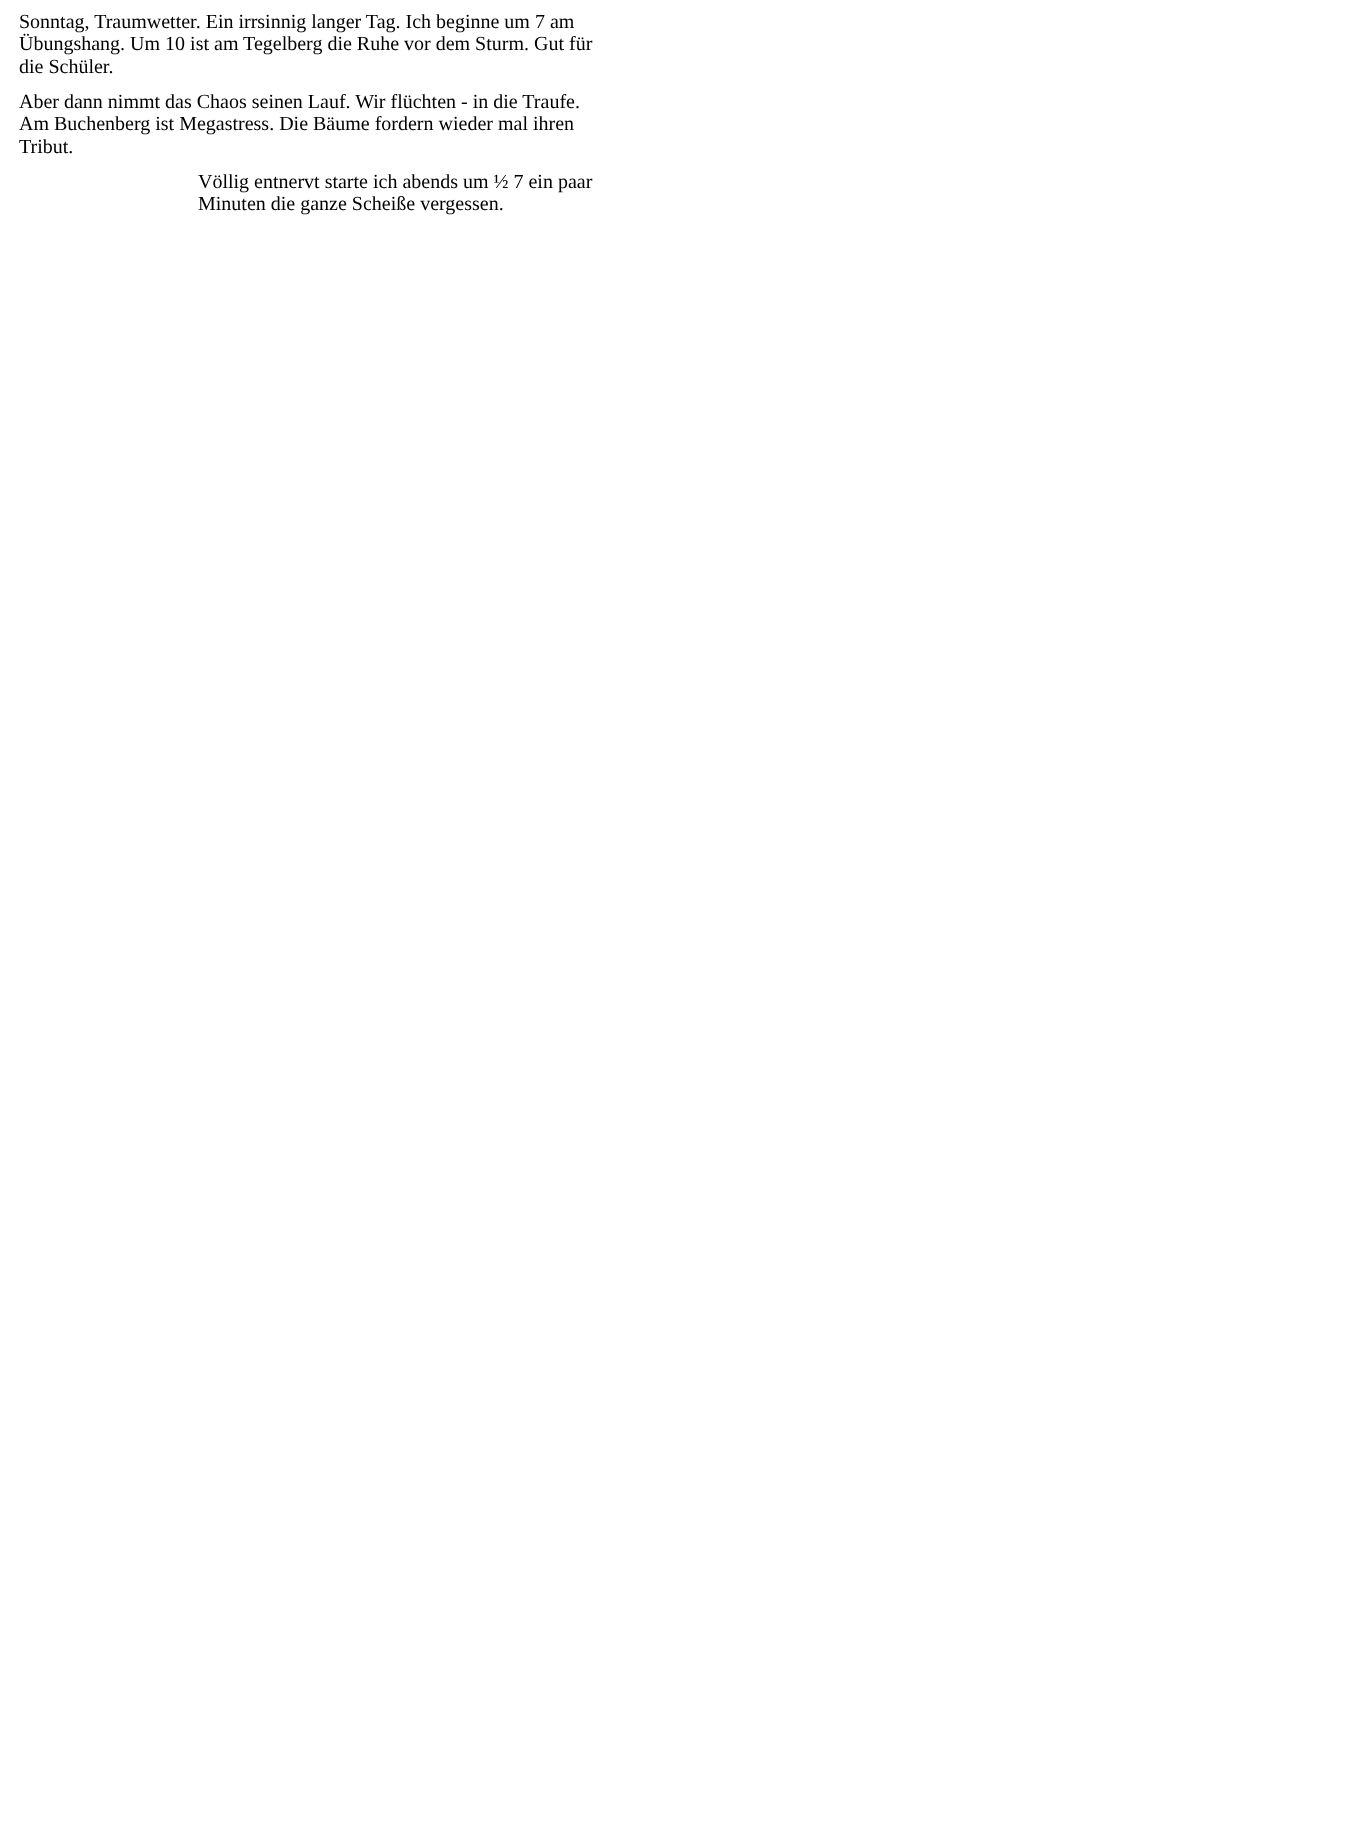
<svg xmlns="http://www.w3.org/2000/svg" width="1364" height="1824">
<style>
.a{font:20px Liberation Serif;fill:#000}
</style>
<rect width="100%" height="100%" fill="#fff"/>
<text class="a" x="19" y="28">Sonntag, Traumwetter. Ein irrsinnig langer Tag. Ich beginne um 7 am</text>
<text class="a" x="19" y="50">Übungshang. Um 10 ist am Tegelberg die Ruhe vor dem Sturm. Gut für</text>
<text class="a" x="19" y="73">die Schüler.</text>
<text class="a" x="19" y="108">Aber dann nimmt das Chaos seinen Lauf. Wir flüchten - in die Traufe.</text>
<text class="a" x="19" y="130">Am Buchenberg ist Megastress. Die Bäume fordern wieder mal ihren</text>
<text class="a" x="19" y="153">Tribut.</text>
<text class="a" x="198" y="188">Völlig entnervt starte ich abends um ½ 7 ein paar</text>
<text class="a" x="198" y="210">Minuten die ganze Scheiße vergessen.</text>
</svg>
